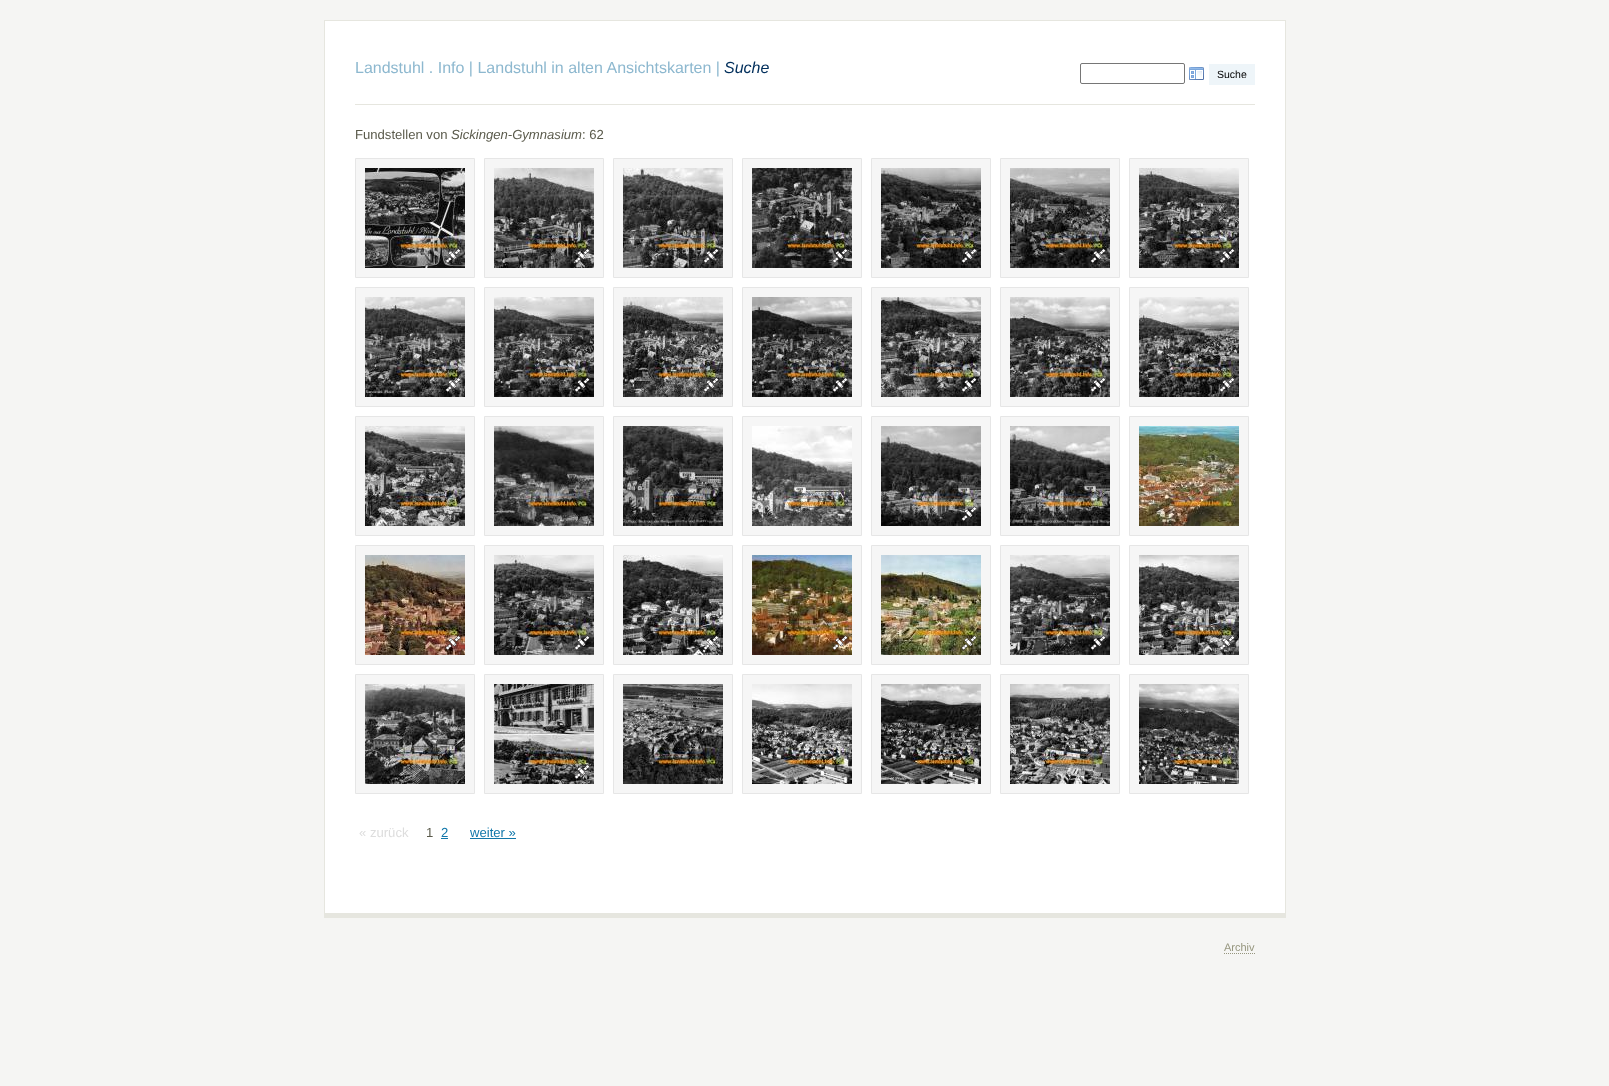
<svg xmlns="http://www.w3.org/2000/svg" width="1609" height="1086">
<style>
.a{font:16px Liberation Sans;fill:#8db8cf}
.b{font:italic 16px Liberation Sans;fill:#002e5b}
.c{font:10.5px Liberation Sans;fill:#000}
.d{font:13.1px Liberation Sans;fill:#5a5a4b}
.e{font:italic 13.1px Liberation Sans;fill:#5a5a4b}
.f{font:13.1px Liberation Sans;fill:#ddd}
.g{font:13.1px Liberation Sans;fill:#17a}
.h{font:11px Liberation Sans;fill:#96967e}
</style>
<rect width="100%" height="100%" fill="#f5f5f3"/>
<path fill="#fff" d="M325 21h960v892H325z"/>
<path fill="#e6e6df" d="M324 20h962v1H324z"/>
<path fill="#e6e6df" d="M1285 20h1v898H1285z"/>
<path fill="#e6e6df" d="M324 913h962v5H324z"/>
<path fill="#e6e6df" d="M324 20h1v898H324z"/>
<path fill="#e6e6df" d="M355 104h900v1H355z"/>
<rect fill="none" stroke="#767676" x="1080.5" y="63.5" width="104" height="20" rx="1.5"/>
<image href="1.png" x="1189" y="67" width="15" height="13"/>
<path fill="#eef5f9" d="M1209 64h46v21H1209z"/>
<path fill="#f6f6f6" stroke="#e6e6e6" d="M355.5 158.5h119v119H355.5z"/>
<image href="2.png" x="365" y="168" width="100" height="100"/>
<image href="3.png" x="445" y="248" width="16" height="16"/>
<path fill="#f6f6f6" stroke="#e6e6e6" d="M484.5 158.5h119v119H484.5z"/>
<image href="4.png" x="494" y="168" width="100" height="100"/>
<image href="5.png" x="574" y="249" width="16" height="15"/>
<path fill="#f6f6f6" stroke="#e6e6e6" d="M613.5 158.5h119v119H613.5z"/>
<image href="6.png" x="623" y="168" width="100" height="100"/>
<image href="7.png" x="703" y="248" width="16" height="16"/>
<path fill="#f6f6f6" stroke="#e6e6e6" d="M742.5 158.5h119v119H742.5z"/>
<image href="8.png" x="752" y="168" width="100" height="100"/>
<image href="9.png" x="832" y="249" width="16" height="15"/>
<path fill="#f6f6f6" stroke="#e6e6e6" d="M871.5 158.5h119v119H871.5z"/>
<image href="10.png" x="881" y="168" width="100" height="100"/>
<image href="11.png" x="961" y="249" width="16" height="15"/>
<path fill="#f6f6f6" stroke="#e6e6e6" d="M1000.5 158.5h119v119H1000.5z"/>
<image href="12.png" x="1010" y="168" width="100" height="100"/>
<image href="13.png" x="1090" y="248" width="16" height="16"/>
<path fill="#f6f6f6" stroke="#e6e6e6" d="M1129.5 158.5h119v119H1129.5z"/>
<image href="14.png" x="1139" y="168" width="100" height="100"/>
<image href="15.png" x="1219" y="248" width="15" height="16"/>
<path fill="#f6f6f6" stroke="#e6e6e6" d="M355.5 287.5h119v119H355.5z"/>
<image href="16.png" x="365" y="297" width="100" height="100"/>
<image href="17.png" x="445" y="377" width="16" height="16"/>
<path fill="#f6f6f6" stroke="#e6e6e6" d="M484.5 287.5h119v119H484.5z"/>
<image href="18.png" x="494" y="297" width="100" height="100"/>
<image href="19.png" x="574" y="378" width="16" height="15"/>
<path fill="#f6f6f6" stroke="#e6e6e6" d="M613.5 287.5h119v119H613.5z"/>
<image href="20.png" x="623" y="297" width="100" height="100"/>
<image href="21.png" x="703" y="377" width="16" height="16"/>
<path fill="#f6f6f6" stroke="#e6e6e6" d="M742.5 287.5h119v119H742.5z"/>
<image href="22.png" x="752" y="297" width="100" height="100"/>
<image href="23.png" x="832" y="377" width="16" height="16"/>
<path fill="#f6f6f6" stroke="#e6e6e6" d="M871.5 287.5h119v119H871.5z"/>
<image href="24.png" x="881" y="297" width="100" height="100"/>
<image href="25.png" x="961" y="378" width="16" height="14"/>
<path fill="#f6f6f6" stroke="#e6e6e6" d="M1000.5 287.5h119v119H1000.5z"/>
<image href="26.png" x="1010" y="297" width="100" height="100"/>
<image href="27.png" x="1090" y="377" width="16" height="15"/>
<path fill="#f6f6f6" stroke="#e6e6e6" d="M1129.5 287.5h119v119H1129.5z"/>
<image href="28.png" x="1139" y="297" width="100" height="100"/>
<image href="29.png" x="1219" y="377" width="16" height="16"/>
<path fill="#f6f6f6" stroke="#e6e6e6" d="M355.5 416.5h119v119H355.5z"/>
<image href="30.png" x="365" y="426" width="100" height="100"/>
<path fill="#f6f6f6" stroke="#e6e6e6" d="M484.5 416.5h119v119H484.5z"/>
<image href="31.png" x="494" y="426" width="100" height="100"/>
<path fill="#f6f6f6" stroke="#e6e6e6" d="M613.5 416.5h119v119H613.5z"/>
<image href="32.png" x="623" y="426" width="100" height="100"/>
<path fill="#f6f6f6" stroke="#e6e6e6" d="M742.5 416.5h119v119H742.5z"/>
<image href="33.png" x="752" y="426" width="100" height="100"/>
<path fill="#f6f6f6" stroke="#e6e6e6" d="M871.5 416.5h119v119H871.5z"/>
<image href="34.png" x="881" y="426" width="100" height="100"/>
<image href="35.png" x="961" y="506" width="16" height="16"/>
<path fill="#f6f6f6" stroke="#e6e6e6" d="M1000.5 416.5h119v119H1000.5z"/>
<image href="36.png" x="1010" y="426" width="100" height="100"/>
<path fill="#f6f6f6" stroke="#e6e6e6" d="M1129.5 416.5h119v119H1129.5z"/>
<image href="37.png" x="1139" y="426" width="100" height="100"/>
<path fill="#f6f6f6" stroke="#e6e6e6" d="M355.5 545.5h119v119H355.5z"/>
<image href="38.png" x="365" y="555" width="100" height="100"/>
<image href="39.png" x="445" y="635" width="16" height="16"/>
<path fill="#f6f6f6" stroke="#e6e6e6" d="M484.5 545.5h119v119H484.5z"/>
<image href="40.png" x="494" y="555" width="100" height="100"/>
<image href="41.png" x="574" y="635" width="16" height="16"/>
<path fill="#f6f6f6" stroke="#e6e6e6" d="M613.5 545.5h119v119H613.5z"/>
<image href="42.png" x="623" y="555" width="100" height="100"/>
<image href="43.png" x="703" y="635" width="16" height="16"/>
<path fill="#f6f6f6" stroke="#e6e6e6" d="M742.5 545.5h119v119H742.5z"/>
<image href="44.png" x="752" y="555" width="100" height="100"/>
<image href="45.png" x="832" y="635" width="16" height="16"/>
<path fill="#f6f6f6" stroke="#e6e6e6" d="M871.5 545.5h119v119H871.5z"/>
<image href="46.png" x="881" y="555" width="100" height="100"/>
<image href="47.png" x="961" y="635" width="16" height="16"/>
<path fill="#f6f6f6" stroke="#e6e6e6" d="M1000.5 545.5h119v119H1000.5z"/>
<image href="48.png" x="1010" y="555" width="100" height="100"/>
<image href="49.png" x="1090" y="635" width="16" height="16"/>
<path fill="#f6f6f6" stroke="#e6e6e6" d="M1129.5 545.5h119v119H1129.5z"/>
<image href="50.png" x="1139" y="555" width="100" height="100"/>
<image href="51.png" x="1219" y="635" width="16" height="15"/>
<path fill="#f6f6f6" stroke="#e6e6e6" d="M355.5 674.5h119v119H355.5z"/>
<image href="52.png" x="365" y="684" width="100" height="100"/>
<path fill="#f6f6f6" stroke="#e6e6e6" d="M484.5 674.5h119v119H484.5z"/>
<image href="53.png" x="494" y="684" width="100" height="100"/>
<image href="54.png" x="574" y="764" width="16" height="16"/>
<path fill="#f6f6f6" stroke="#e6e6e6" d="M613.5 674.5h119v119H613.5z"/>
<image href="55.png" x="623" y="684" width="100" height="100"/>
<path fill="#f6f6f6" stroke="#e6e6e6" d="M742.5 674.5h119v119H742.5z"/>
<image href="56.png" x="752" y="684" width="100" height="100"/>
<path fill="#f6f6f6" stroke="#e6e6e6" d="M871.5 674.5h119v119H871.5z"/>
<image href="57.png" x="881" y="684" width="100" height="100"/>
<path fill="#f6f6f6" stroke="#e6e6e6" d="M1000.5 674.5h119v119H1000.5z"/>
<image href="58.png" x="1010" y="684" width="100" height="100"/>
<path fill="#f6f6f6" stroke="#e6e6e6" d="M1129.5 674.5h119v119H1129.5z"/>
<image href="59.png" x="1139" y="684" width="100" height="100"/>
<path fill="#17a" d="M441 838h7v1H441z"/>
<path fill="#17a" d="M470 838h46v1H470z"/>
<path fill="none" stroke="#96967e" stroke-dasharray="1 1" d="M1224 953.5h31"/>
<text class="a" x="355" y="73">Landstuhl . Info | Landstuhl in alten Ansichtskarten |</text>
<text class="b" x="724" y="73">Suche</text>
<text class="c" x="1217" y="78">Suche</text>
<text class="d" x="355" y="139">Fundstellen von</text>
<text class="e" x="451" y="139">Sickingen-Gymnasium</text>
<text class="d" x="582" y="139">: 62</text>
<text class="f" x="359" y="837">« zurück</text>
<text class="d" x="426" y="837">1</text>
<text class="g" x="441" y="837">2</text>
<text class="g" x="470" y="837">weiter »</text>
<text class="h" x="1224" y="951">Archiv</text>
</svg>
